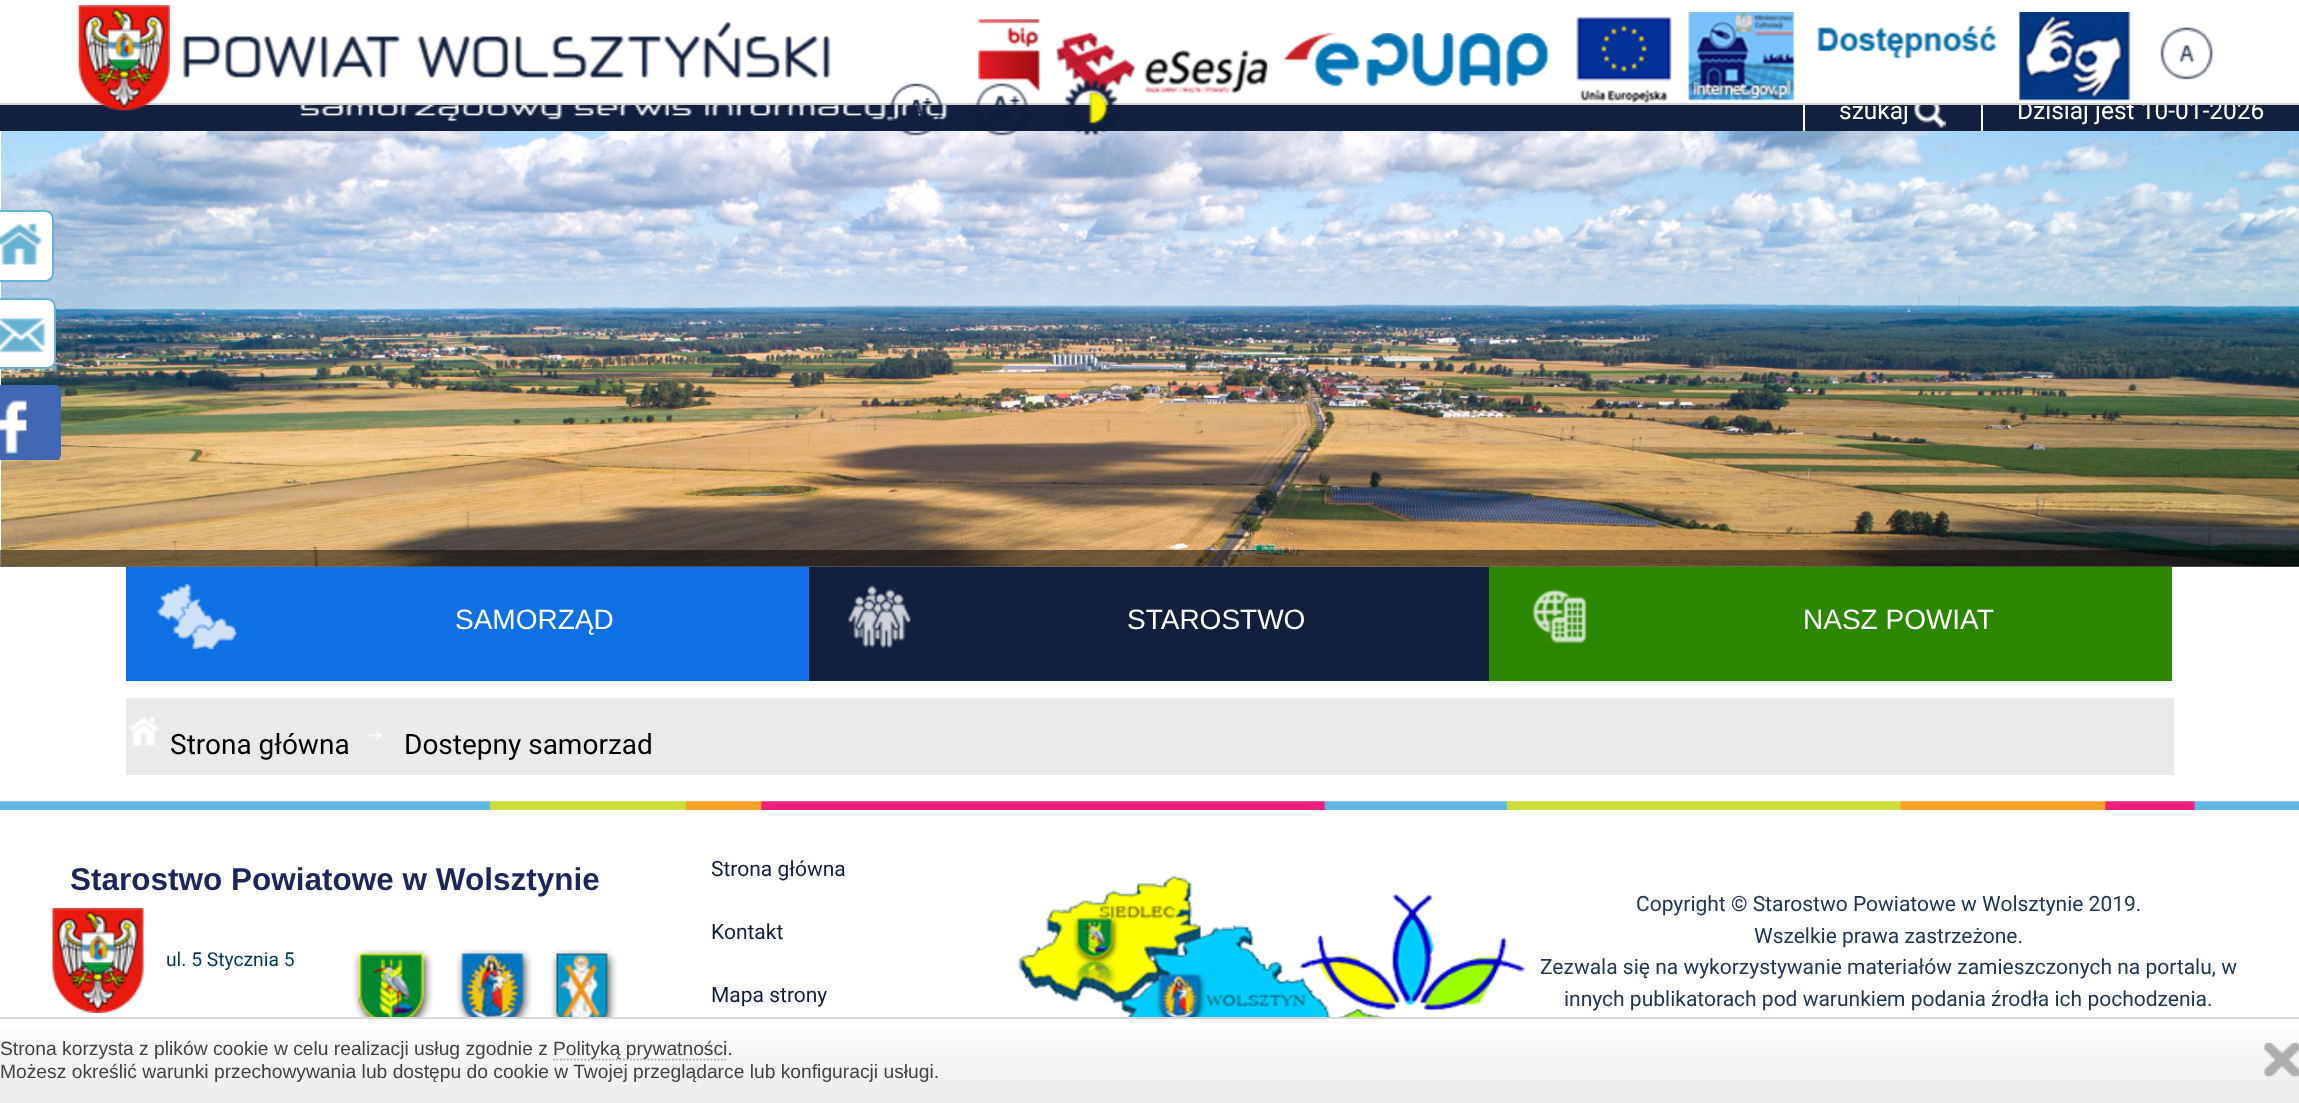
<svg xmlns="http://www.w3.org/2000/svg" width="2299" height="1103">
<style>
.a{font:24.5px Roboto;fill:#fff}
.b{font:28px Liberation Sans;fill:#fff}
.c{font:28px Roboto;fill:#000}
.d{font:bold 31.5px Liberation Sans;fill:#1c265b}
.e{font:19.25px Roboto;fill:#003a58}
.f{font:21px Roboto;fill:#12203d}
.g{font:21px Roboto;fill:#203651}
.h{font:19.25px Liberation Sans;fill:#414141}
</style>
<defs>
<linearGradient id="g1" gradientUnits="userSpaceOnUse" x1="1150" y1="1018" x2="1150" y2="1103"><stop offset="0" stop-color="#fff"/><stop offset="1" stop-color="#ebebeb"/></linearGradient>
</defs>
<rect width="100%" height="100%" fill="#fff"/>
<image href="17.png" x="0" y="131" width="2299" height="436"/>
<path fill="#fff" stroke="#67b2d3" stroke-width="2" d="M-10 211h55c4.5 0 8 3.5 8 8v54c0 4.5-3.5 8-8 8h-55z"/>
<image href="1.png" x="0" y="223" width="43" height="42"/>
<image href="3.png" x="183" y="22" width="648" height="57"/>
<image href="4.png" x="978" y="19" width="63" height="73"/>
<image href="5.png" x="1056" y="33" width="212" height="63"/>
<image href="6.png" x="1284" y="33" width="266" height="54"/>
<image href="7.png" x="1576" y="16" width="96" height="87"/>
<image href="8.png" x="1688" y="12" width="107" height="89"/>
<image href="9.png" x="1817" y="25" width="181" height="34"/>
<image href="10.png" x="2019" y="12" width="112" height="89"/>
<image href="11.png" x="2160" y="27" width="54" height="53"/>
<path fill="#12203d" d="M0 105h2299v26H0z"/>
<image href="15.png" x="300" y="105" width="648" height="16"/>
<path fill="#fff" d="M1981 105h2v26H1981z"/>
<path fill="#fff" d="M1803 105h2v26H1803z"/>
<image href="16.png" x="1914" y="105" width="32" height="23"/>
<path fill="#0000007d" d="M0 550h2299v17H0z"/>
<path fill="#0f6fe4" d="M126 567h683v114H126z"/>
<image href="18.png" x="157" y="584" width="80" height="65"/>
<path fill="#12203d" d="M809 567h680v114H809z"/>
<image href="19.png" x="848" y="585" width="63" height="63"/>
<path fill="#2c8700" d="M1489 567h683v114H1489z"/>
<image href="20.png" x="1532" y="589" width="56" height="55"/>
<path fill="#ece9e9" d="M126 698h2048v77H126z"/>
<image href="21.png" x="128" y="717" width="32" height="29"/>
<image href="22.png" x="367" y="731" width="15" height="10"/>
<path fill="#fff" stroke="#67b2d3" stroke-width="2" d="M-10 299h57c4.5 0 8 3.5 8 8v53c0 4.5-3.5 8-8 8h-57z"/>
<image href="23.png" x="0" y="318" width="46" height="35"/>
<image href="24.png" x="0" y="385" width="61" height="75"/>
<image href="25.png" x="0" y="801" width="2299" height="9"/>
<image href="26.png" x="52" y="908" width="92" height="105"/>
<image href="27.png" x="353" y="949" width="80" height="68"/>
<image href="28.png" x="456" y="949" width="76" height="68"/>
<image href="29.png" x="551" y="949" width="66" height="68"/>
<image href="30.png" x="1018" y="876" width="507" height="141"/>
<path fill="url(#g1)" d="M0 1029h2299v74H0z"/>
<path fill="#d7d7d7" d="M0 1017h2299v2H0z"/>
<path fill="none" stroke="#aeaeae" stroke-width="1.8" stroke-dasharray="1.75 1.75" d="M553 1059.5h175"/>
<image href="31.png" x="2264" y="1043" width="35" height="34"/>
<text class="a" x="1839" y="119">szukaj</text>
<text class="a" x="2017" y="119">Dzisiaj jest 10-01-2026</text>
<path fill="#d1d1d1" d="M0 103h2299v2H0z"/>
<image href="2.png" x="78" y="5" width="92" height="106"/>
<image href="14.png" x="1064" y="79" width="55" height="57"/>
<image href="13.png" x="975" y="83" width="54" height="53"/>
<image href="12.png" x="890" y="83" width="52" height="53"/>
<text class="b" x="455" y="629">SAMORZĄD</text>
<text class="b" x="1127" y="629">STAROSTWO</text>
<text class="b" x="1803" y="629">NASZ POWIAT</text>
<text class="c" x="170" y="754">Strona główna</text>
<text class="c" x="404" y="754">Dostepny samorzad</text>
<text class="d" x="70" y="890">Starostwo Powiatowe w Wolsztynie</text>
<text class="e" x="166" y="966">ul. 5 Stycznia 5</text>
<text class="f" x="711" y="876">Strona główna</text>
<text class="f" x="711" y="939">Kontakt</text>
<text class="f" x="711" y="1002">Mapa strony</text>
<text class="g" x="1636" y="911">Copyright © Starostwo Powiatowe w Wolsztynie 2019.</text>
<text class="g" x="1754" y="943">Wszelkie prawa zastrzeżone.</text>
<text class="g" x="1540" y="974">Zezwala się na wykorzystywanie materiałów zamieszczonych na portalu, w</text>
<text class="g" x="1564" y="1006">innych publikatorach pod warunkiem podania źrodła ich pochodzenia.</text>
<text class="h" x="0" y="1055">Strona korzysta z plików cookie w celu realizacji usług zgodnie z</text>
<text class="h" x="553" y="1055">Polityką prywatności.</text>
<text class="h" x="0" y="1078">Możesz określić warunki przechowywania lub dostępu do cookie w Twojej przeglądarce lub konfiguracji usługi.</text>
</svg>
